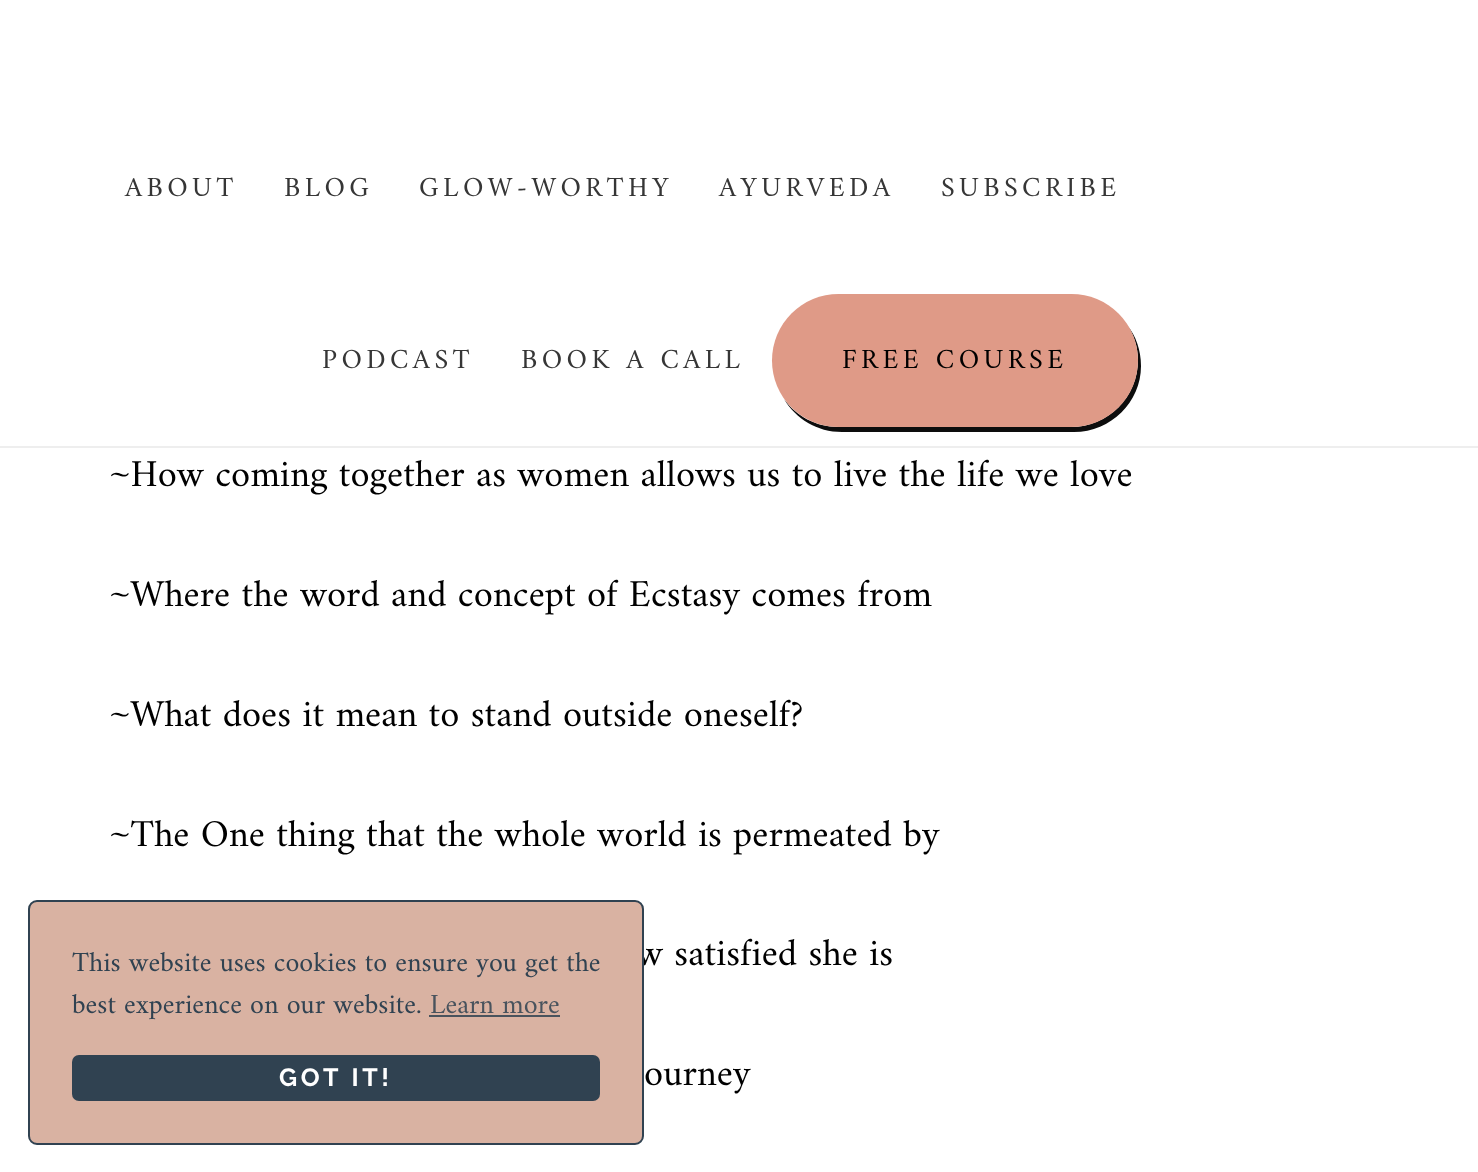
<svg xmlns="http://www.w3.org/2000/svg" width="1478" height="1172">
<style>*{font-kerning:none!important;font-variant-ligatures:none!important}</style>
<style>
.a{font:28px Amiri;letter-spacing:4.4px;fill:#363636}
.b{font:28px Amiri;letter-spacing:4.4px;fill:#000}
.c{font:38.5px Amiri;fill:#000}
.d{font:28px Amiri;fill:#304251}
.e{font:28px Amiri;fill:#49535d}
.f{font:bold 25px Raleway;letter-spacing:3.5px;fill:#fff}
</style>
<rect width="100%" height="100%" fill="#fff"/>
<path fill="#eee" d="M0 446h1478v2H0z"/>
<path fill="#0d0d0d" d="M784 399c12 20 33 33 58 33h232c37 0 67-30 67-66c0-16-5-30-14-41c7 10 11 22 11 35c0 37-30 67-67 67h-233c-22 0-42-11-54-28z"/>
<rect fill="#df9a87" x="772" y="294" width="366" height="133" rx="66.5"/>
<text class="a" x="125" y="196">ABOUT</text>
<text class="a" x="284" y="196">BLOG</text>
<text class="a" x="419" y="196">GLOW-WORTHY</text>
<text class="a" x="719" y="196">AYURVEDA</text>
<text class="a" x="941" y="196">SUBSCRIBE</text>
<text class="a" x="322" y="368">PODCAST</text>
<text class="a" x="521" y="368">BOOK A CALL</text>
<text class="b" x="842" y="368">FREE COURSE</text>
<text class="c" x="109" y="486">~How coming together as women allows us to live the life we love</text>
<text class="c" x="109" y="606">~Where the word and concept of Ecstasy comes from</text>
<text class="c" x="109" y="726">~What does it mean to stand outside oneself?</text>
<text class="c" x="109" y="846">~The One thing that the whole world is permeated by</text>
<text class="c" x="636" y="965">w satisfied she is</text>
<text class="c" x="644" y="1085">ourney</text>
<rect fill="#d9b2a2" stroke="#304251" stroke-width="2" x="29" y="901" width="614" height="243" rx="8"/>
<text class="d" x="72" y="971">This website uses cookies to ensure you get the</text>
<text class="d" x="72" y="1013">best experience on our website.</text>
<text class="e" x="430" y="1013">Learn more</text>
<path fill="#49535d" d="M429 1015h131v2H429z"/>
<rect fill="#304251" x="72" y="1055" width="528" height="46" rx="7"/>
<text class="f" x="279" y="1086">GOT IT!</text>
</svg>
